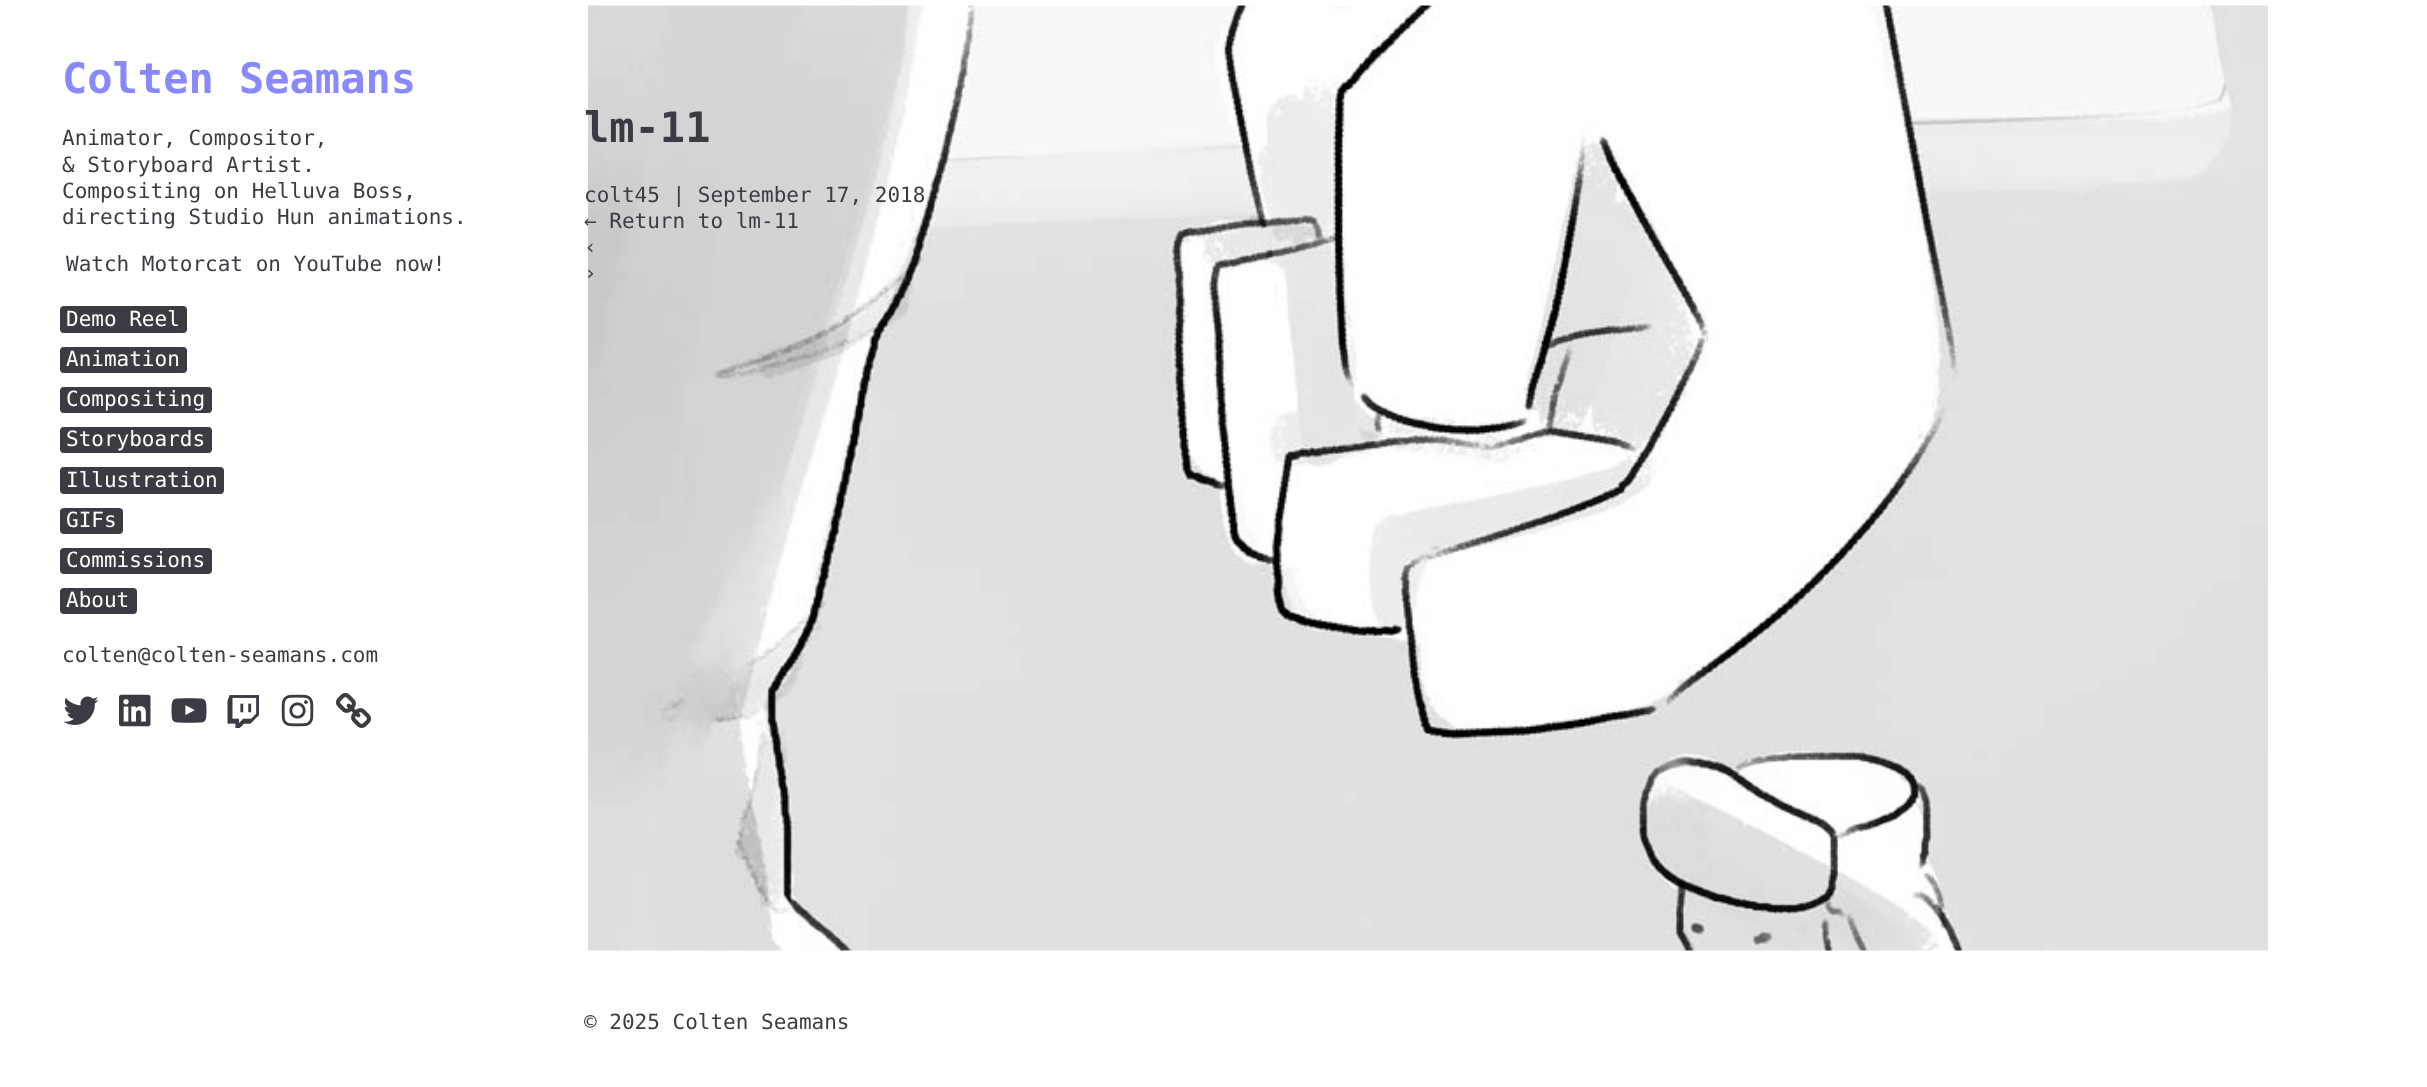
<svg xmlns="http://www.w3.org/2000/svg" width="2427" height="1087">
<style>
.a{font:bold 42px DejaVu Sans Mono;fill:#8989ff}
.b{font:21px DejaVu Sans Mono;fill:#3b3b44}
.c{font:21px DejaVu Sans Mono;fill:#fff}
.d{font:bold 42px DejaVu Sans Mono;fill:#3b3b44}
</style>
<rect width="100%" height="100%" fill="#fff"/>
<rect fill="#3b3b44" x="60" y="306" width="127" height="27" rx="4"/>
<rect fill="#3b3b44" x="60" y="347" width="127" height="26" rx="4"/>
<rect fill="#3b3b44" x="60" y="387" width="152" height="26" rx="4"/>
<rect fill="#3b3b44" x="60" y="427" width="152" height="26" rx="4"/>
<rect fill="#3b3b44" x="60" y="467" width="164" height="27" rx="4"/>
<rect fill="#3b3b44" x="60" y="508" width="63" height="26" rx="4"/>
<rect fill="#3b3b44" x="60" y="548" width="152" height="26" rx="4"/>
<rect fill="#3b3b44" x="60" y="588" width="77" height="26" rx="4"/>
<image href="1.png" x="63" y="696" width="36" height="29"/>
<image href="2.png" x="119" y="694" width="32" height="33"/>
<image href="3.png" x="171" y="698" width="36" height="25"/>
<image href="4.png" x="227" y="695" width="32" height="33"/>
<image href="5.png" x="281" y="694" width="33" height="33"/>
<image href="6.png" x="336" y="693" width="35" height="35"/>
<image href="7.png" x="588" y="5" width="1680" height="946"/>
<text class="a" x="62" y="93">Colten Seamans</text>
<text class="b" x="62" y="145">Animator, Compositor,</text>
<text class="b" x="62" y="172">&amp; Storyboard Artist.</text>
<text class="b" x="62" y="198">Compositing on Helluva Boss,</text>
<text class="b" x="62" y="224">directing Studio Hun animations.</text>
<text class="b" x="66" y="271">Watch Motorcat on YouTube now!</text>
<text class="c" x="66" y="326">Demo Reel</text>
<text class="c" x="66" y="366">Animation</text>
<text class="c" x="66" y="406">Compositing</text>
<text class="c" x="66" y="446">Storyboards</text>
<text class="c" x="66" y="487">Illustration</text>
<text class="c" x="66" y="527">GIFs</text>
<text class="c" x="66" y="567">Commissions</text>
<text class="c" x="66" y="607">About</text>
<text class="b" x="62" y="662">colten@colten-seamans.com</text>
<text class="d" x="584" y="142">lm-11</text>
<text class="b" x="584" y="202">colt45 | September 17, 2018</text>
<text class="b" x="584" y="228">← Return to lm-11</text>
<text class="b" x="584" y="254">‹</text>
<text class="b" x="584" y="280">›</text>
<text class="b" x="584" y="1029">© 2025 Colten Seamans</text>
</svg>
